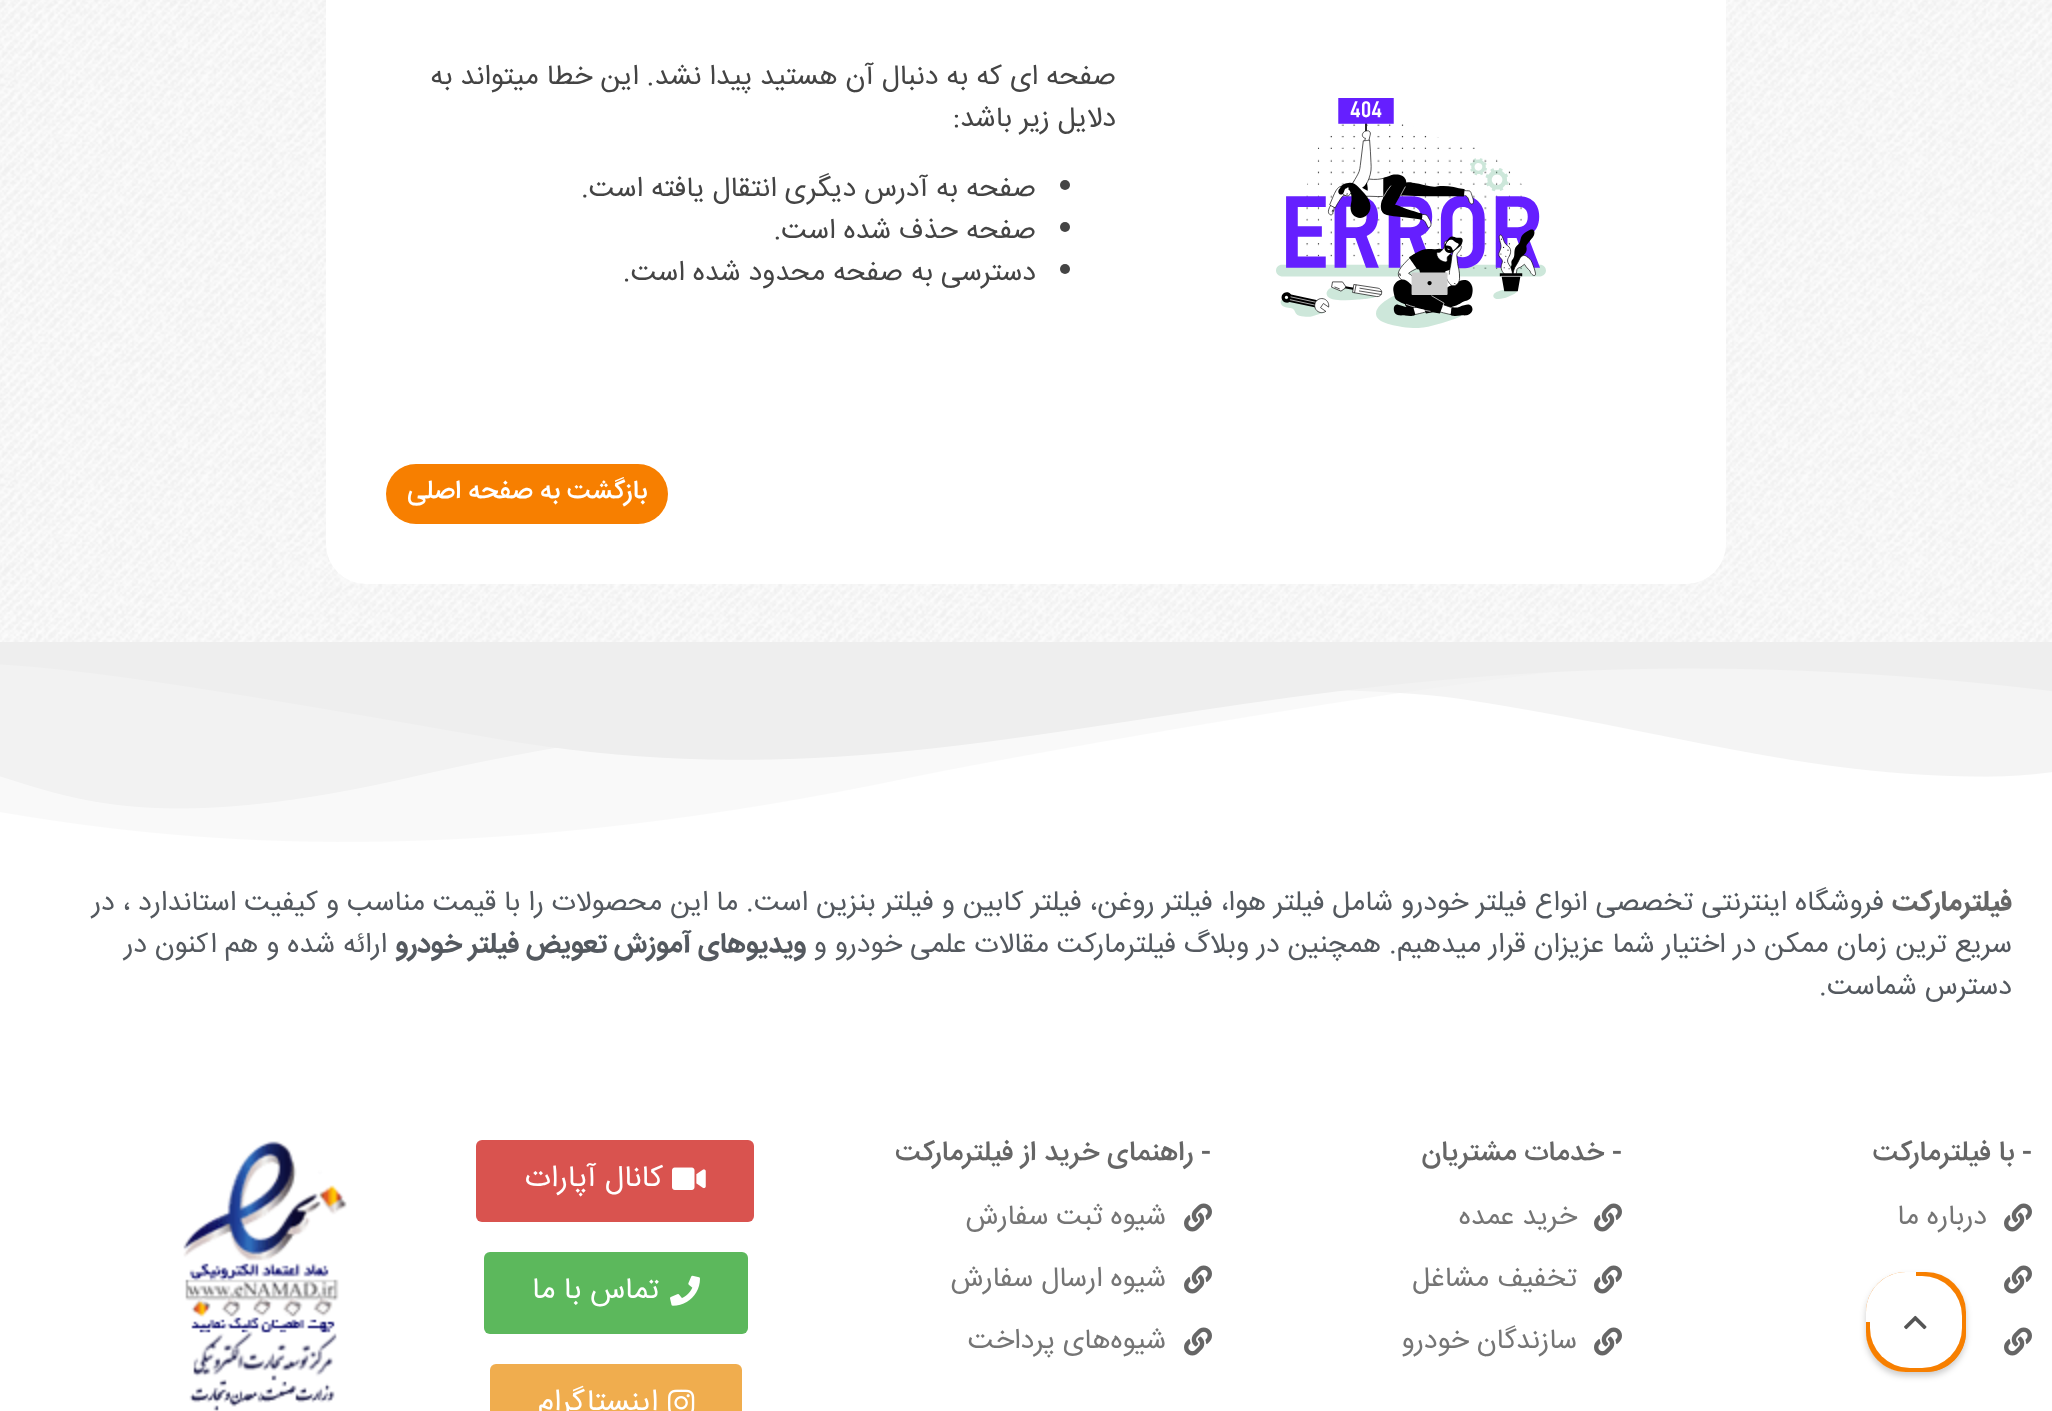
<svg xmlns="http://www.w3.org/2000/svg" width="2052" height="1411">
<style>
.a{font:28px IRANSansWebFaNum;direction:rtl;fill:#444}
.b{font:500 26px IRANSansWebFaNum;direction:rtl;fill:#fff}
.c{font:bold 28px IRANSansWebFaNum;direction:rtl;fill:#666}
.d{font:28px IRANSansWebFaNum;direction:rtl;fill:#54595f}
.e{font:bold 28px IRANSansWebFaNum;direction:rtl;fill:#54595f}
.f{font:500 28px IRANSansWebFaNum;direction:rtl;fill:#666}
.g{font:28px IRANSansWebFaNum;direction:rtl;fill:#757575}
.h{font:30px IRANSansWebFaNum;direction:rtl;fill:#fff}
</style>
<rect width="100%" height="100%" fill="#fff"/>
<image href="1.png" x="0" y="0" width="2052" height="642"/>
<rect fill="#fff" x="326" y="-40" width="1400" height="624" rx="40"/>
<image href="2.png" x="1276" y="98" width="270" height="230"/>
<circle fill="#444" cx="1065" cy="185" r="5"/>
<circle fill="#444" cx="1065" cy="227" r="5"/>
<circle fill="#444" cx="1065" cy="269" r="5"/>
<rect fill="#f77f00" x="386" y="464" width="282" height="60" rx="30"/>
<image href="3.png" x="0" y="642" width="2052" height="200"/>
<image href="4.png" x="2004" y="1203" width="28" height="29"/>
<image href="4.png" x="2004" y="1265" width="28" height="29"/>
<image href="4.png" x="2004" y="1327" width="28" height="29"/>
<image href="4.png" x="1594" y="1203" width="28" height="29"/>
<image href="4.png" x="1594" y="1265" width="28" height="29"/>
<image href="4.png" x="1594" y="1327" width="28" height="29"/>
<image href="4.png" x="1184" y="1203" width="28" height="29"/>
<image href="4.png" x="1184" y="1265" width="28" height="29"/>
<image href="4.png" x="1184" y="1327" width="28" height="29"/>
<rect fill="#d9534f" x="476" y="1140" width="278" height="82" rx="6"/>
<image href="5.png" x="672" y="1167" width="34" height="23"/>
<rect fill="#5cb85c" x="484" y="1252" width="264" height="82" rx="6"/>
<image href="6.png" x="670" y="1275" width="30" height="31"/>
<rect fill="#f0ad4e" x="490" y="1364" width="252" height="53" rx="6"/>
<image href="7.png" x="668" y="1389" width="27" height="22"/>
<image href="8.png" x="183" y="1141" width="164" height="270"/>
<rect fill="#00000033" filter="blur(3px)" x="1866" y="1276" width="100" height="100" rx="40"/>
<rect fill="#f77f00" x="1866" y="1272" width="100" height="100" rx="40"/>
<path fill="#fff" d="M1906 1272h10v100h-10c-22 0-40-18-40-40v-20c0-22 18-40 40-40z"/>
<path fill="#f77f00" d="M1866 1322h100v10c0 22-18 40-40 40h-20c-22 0-40-18-40-40z"/>
<rect fill="#fff" x="1870" y="1276" width="92" height="92" rx="40"/>
<image href="9.png" x="1904" y="1315" width="23" height="15"/>
<text class="a" x="1116" y="84">صفحه ای که به دنبال آن هستید پیدا نشد. این خطا میتواند به</text>
<text class="a" x="1116" y="126">دلایل زیر باشد:</text>
<text class="a" x="1036" y="196">صفحه به آدرس دیگری انتقال یافته است.</text>
<text class="a" x="1036" y="238">صفحه حذف شده است.</text>
<text class="a" x="1036" y="280">دسترسی به صفحه محدود شده است.</text>
<text class="b" x="647" y="498">بازگشت به صفحه اصلی</text>
<text class="c" x="2012" y="910">فیلترمارکت</text>
<text class="d" x="1884" y="910">فروشگاه اینترنتی تخصصی انواع فیلتر خودرو شامل فیلتر هوا، فیلتر روغن، فیلتر کابین و فیلتر بنزین است. ما این محصولات را با قیمت مناسب و کیفیت استاندارد ، در</text>
<text class="d" x="2012" y="952">سریع ترین زمان ممکن در اختیار شما عزیزان قرار میدهیم. همچنین در وبلاگ فیلترمارکت مقالات علمی خودرو و</text>
<text class="e" x="806" y="952">ویدیوهای آموزش تعویض فیلتر خودرو</text>
<text class="d" x="387" y="952">ارائه شده و هم اکنون در</text>
<text class="d" x="2012" y="994">دسترس شماست.</text>
<text class="f" x="2032" y="1160">- با فیلترمارکت</text>
<text class="g" x="1987" y="1224">درباره ما</text>
<text class="f" x="1622" y="1160">- خدمات مشتریان</text>
<text class="g" x="1577" y="1224">خرید عمده</text>
<text class="g" x="1577" y="1286">تخفیف مشاغل</text>
<text class="g" x="1577" y="1348">سازندگان خودرو</text>
<text class="f" x="1211" y="1160">- راهنمای خرید از فیلترمارکت</text>
<text class="g" x="1166" y="1224">شیوه ثبت سفارش</text>
<text class="g" x="1166" y="1286">شیوه ارسال سفارش</text>
<text class="g" x="1166" y="1348">شیوه‌های پرداخت</text>
<text class="h" x="663" y="1186">کانال آپارات</text>
<text class="h" x="659" y="1298">تماس با ما</text>
<text class="h" x="658" y="1410">اینستاگرام</text>
</svg>
